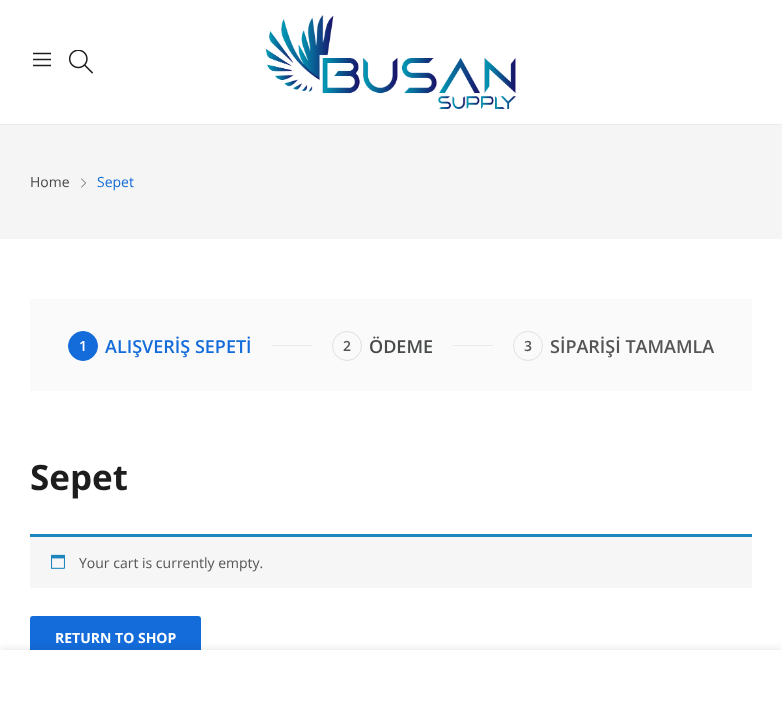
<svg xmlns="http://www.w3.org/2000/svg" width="782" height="705">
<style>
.a{font:14px Open Sans;fill:#47494a}
.b{font:14px Open Sans;fill:#146cda}
.c{font:600 14px Open Sans;fill:#fff}
.d{font:600 18px Open Sans;fill:#146cda}
.e{font:600 14px Open Sans;fill:#555}
.f{font:600 18px Open Sans;fill:#47494a}
.g{font:600 18px Open Sans;fill:#555}
.h{font:bold 35px Open Sans;fill:#1d1d1d}
.i{font:14px Open Sans;fill:#555}
.j{font:bold 14px Open Sans;fill:#fff}
</style>
<rect width="100%" height="100%" fill="#fff"/>
<path fill="#ebebeb" d="M0 124h782v1H0z"/>
<image href="1.png" x="33" y="52" width="18" height="15"/>
<image href="2.png" x="69" y="50" width="24" height="24"/>
<image href="3.png" x="266" y="15" width="250" height="94"/>
<rect fill="#146cda" x="30" y="616" width="171" height="44" rx="3"/>
<path fill="#0000001f" filter="blur(4.5px)" d="M0 650h782v55H0z"/>
<path fill="#fff" d="M0 650h782v55H0z"/>
<path fill="#f5f5f5" d="M0 125h782v114H0z"/>
<image href="4.png" x="81" y="178" width="5" height="10"/>
<path fill="#fafafa" d="M30 299h722v92H30z"/>
<circle fill="#146cda" stroke="#146cda" cx="83" cy="346" r="14.5"/>
<path fill="#ebebeb" d="M272 345h40v1H272z"/>
<circle fill="none" stroke="#e0e0e0" cx="347" cy="346" r="14.5"/>
<path fill="#ebebeb" d="M453 345h40v1H453z"/>
<circle fill="none" stroke="#e0e0e0" cx="528" cy="346" r="14.5"/>
<path fill="#f7f6f7" d="M30 537h722v51H30z"/>
<path fill="#1e85be" d="M30 534h722v3H30z"/>
<image href="5.png" x="51" y="554" width="14" height="15"/>
<text class="a" x="30" y="187">Home</text>
<text class="b" x="97" y="187">Sepet</text>
<text class="c" x="79" y="351">1</text>
<text class="d" x="105" y="353">ALIŞVERİŞ SEPETİ</text>
<text class="e" x="343" y="351">2</text>
<text class="f" x="369" y="353">ÖDEME</text>
<text class="e" x="524" y="351">3</text>
<text class="g" x="550" y="353">SİPARİŞİ TAMAMLA</text>
<text class="h" x="30" y="490">Sepet</text>
<text class="i" x="79" y="568">Your cart is currently empty.</text>
<text class="j" x="55" y="643">RETURN TO SHOP</text>
</svg>
